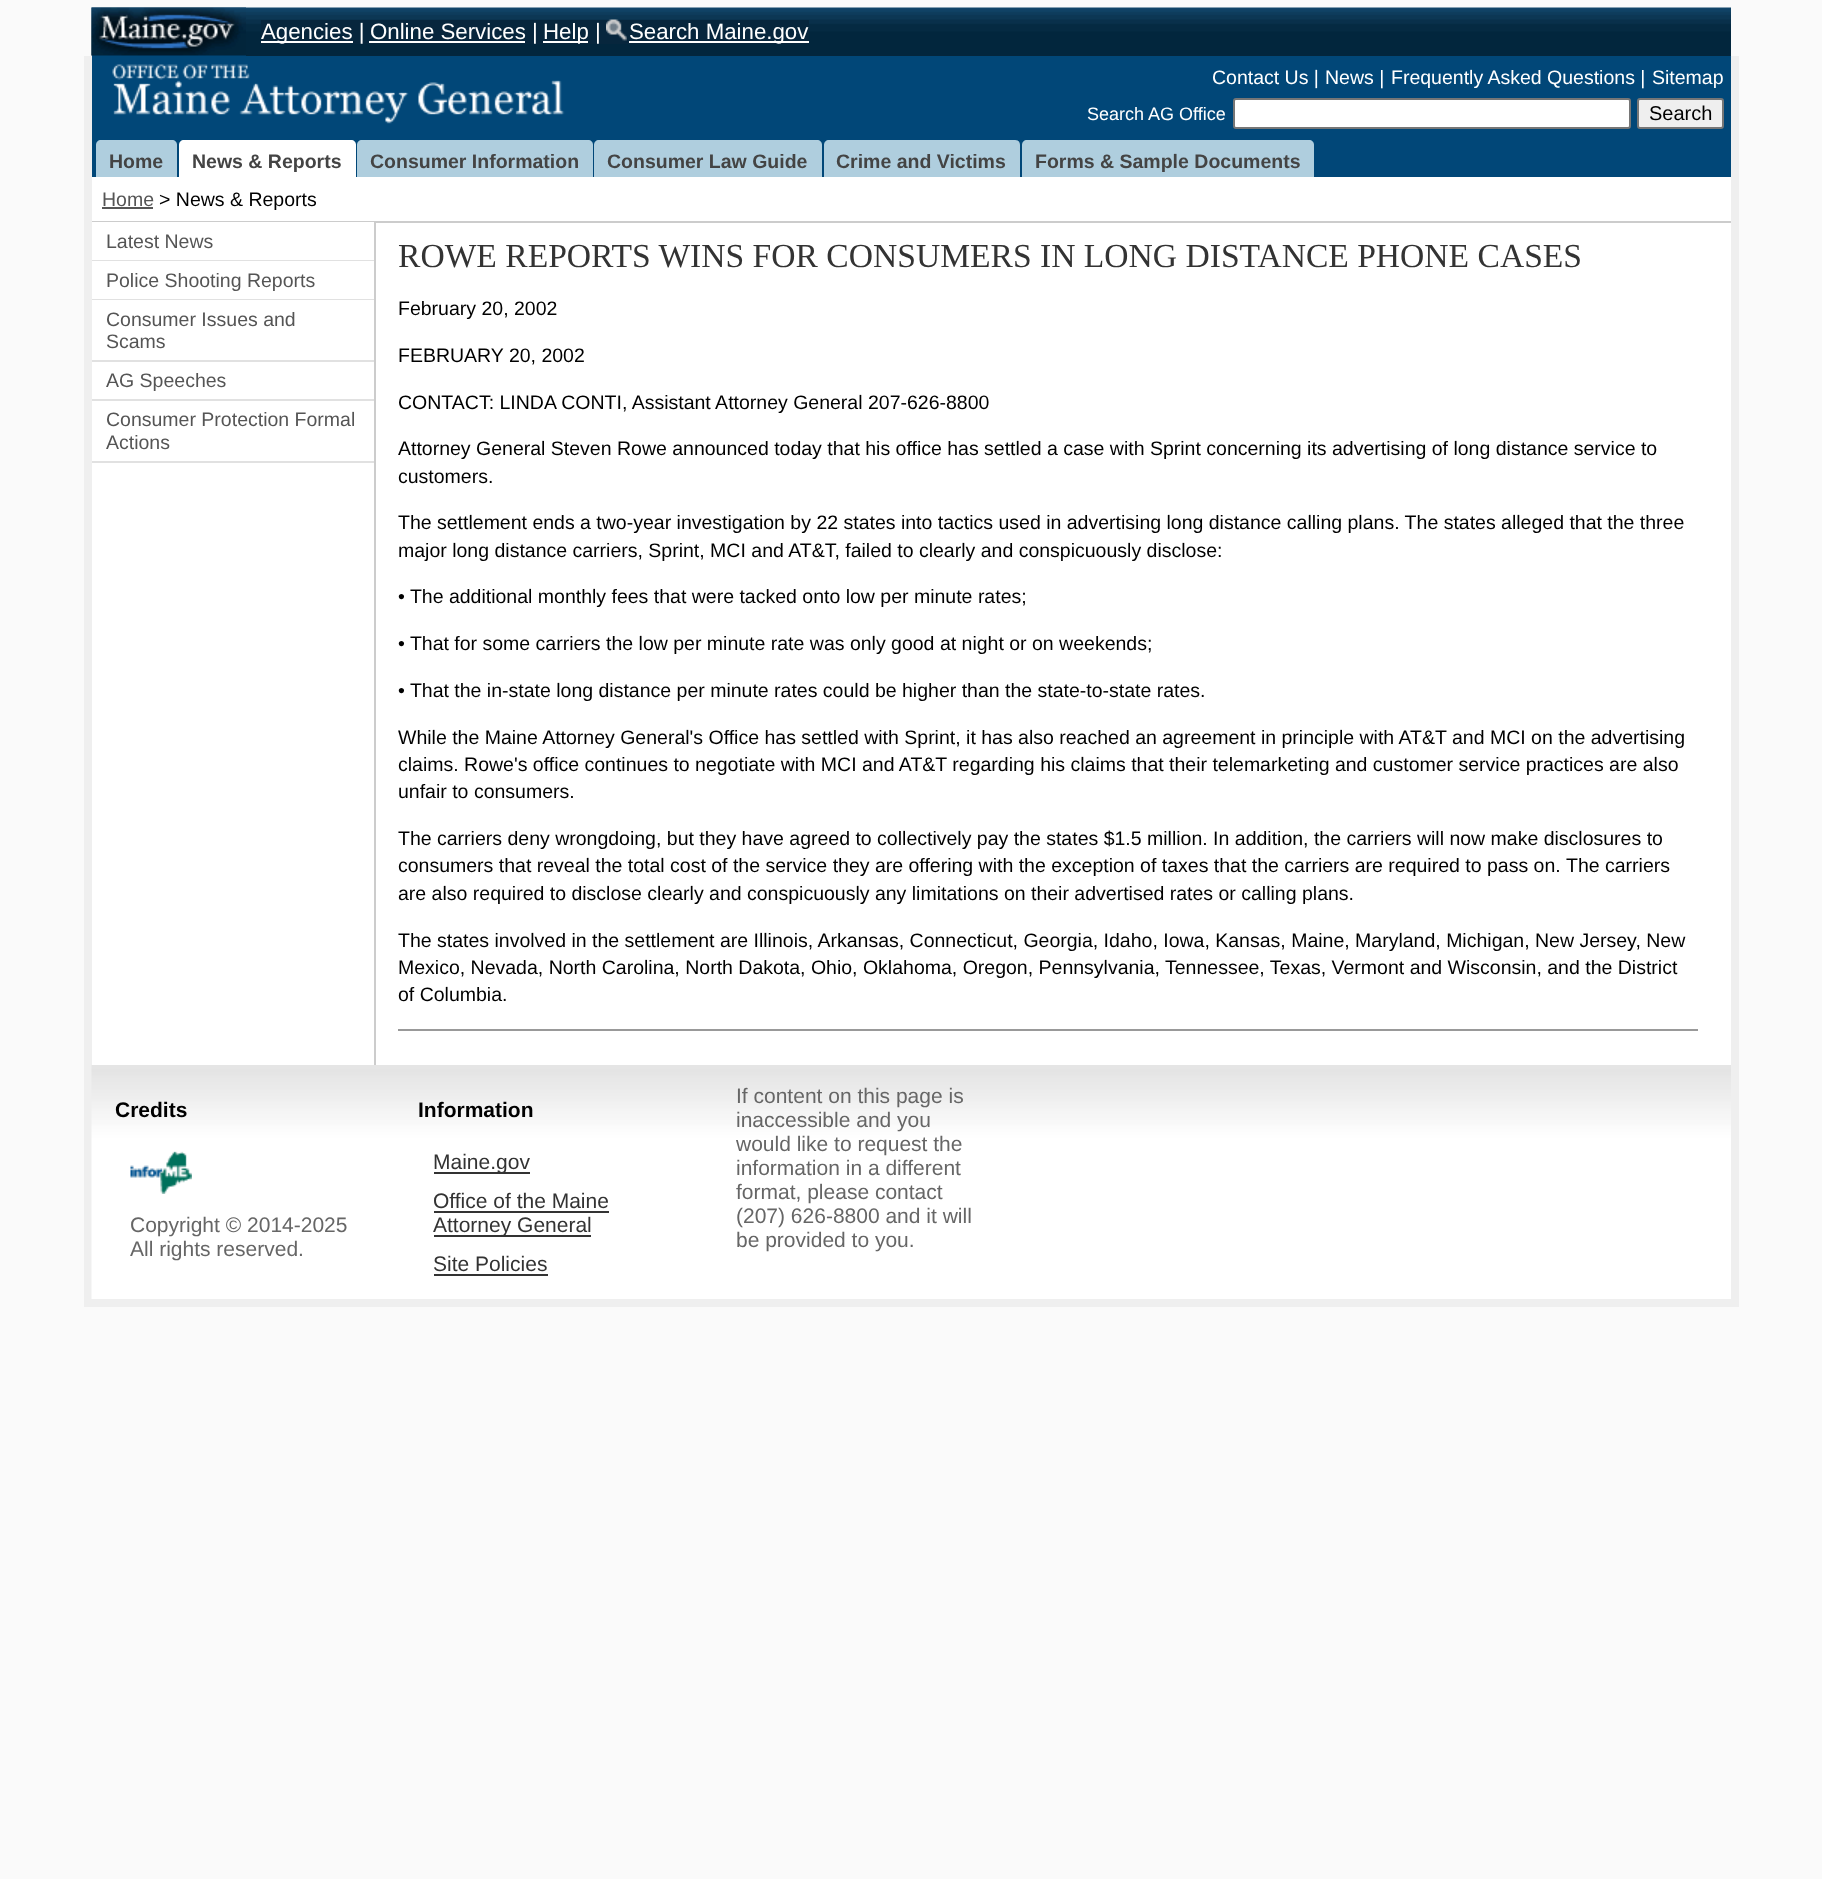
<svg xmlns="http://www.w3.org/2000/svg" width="1822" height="1879">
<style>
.a{font:22.25px Liberation Sans;fill:#fff}
.b{font:19.5px Liberation Sans;fill:#fff}
.c{font:18px Liberation Sans;fill:#fff}
.d{font:20px Liberation Sans;fill:#000}
.e{font:bold 19.5px Liberation Sans;fill:#444}
.f{font:19.5px Liberation Sans;fill:#555}
.g{font:19.5px Liberation Sans;fill:#000}
.h{font:33.6px Liberation Serif;fill:#333}
.i{font:bold 21px Liberation Sans;fill:#000}
.j{font:21px Liberation Sans;fill:#666}
.k{font:21px Liberation Sans;fill:#333}
</style>
<rect width="100%" height="100%" fill="#fafafa"/>
<path fill="#07263d" d="M246 55h1485v1H246z"/>
<image href="1.png" x="91" y="7" width="1640" height="49"/>
<path fill="#014778" d="M92 55h154v1H92z"/>
<image href="2.png" x="91" y="7" width="155" height="49"/>
<path fill="#07263d" d="M261 20h548v24H261z"/>
<path fill="#fff" d="M261 41h92v2H261z"/>
<path fill="#fff" d="M369 41h156v2H369z"/>
<path fill="#fff" d="M543 41h45v2H543z"/>
<image href="3.png" x="606" y="19" width="21" height="22"/>
<path fill="#fff" d="M629 41h180v2H629z"/>
<path fill="#efefef" d="M84 56h1655v1251H84z"/>
<path fill="#014778" d="M92 56h1639v121H92z"/>
<image href="4.png" x="112" y="64" width="453" height="60"/>
<rect fill="#fff" stroke="#767676" stroke-width="2" x="1234" y="99" width="396" height="29" rx="2"/>
<rect fill="#efefef" stroke="#767676" stroke-width="2" x="1638" y="99" width="85" height="29" rx="2"/>
<path fill="#afcede" d="M101 140h71c3 0 5 2 5 5v32h-81v-32c0-3 2-5 5-5z"/>
<path fill="#fff" d="M184 140h167c3 0 5 2 5 5v32h-177v-32c0-3 2-5 5-5z"/>
<path fill="#afcede" d="M362 140h226c3 0 5 2 5 5v32h-236v-32c0-3 2-5 5-5z"/>
<path fill="#afcede" d="M599 140h218c3 0 5 2 5 5v32h-228v-32c0-3 2-5 5-5z"/>
<path fill="#afcede" d="M829 140h186c3 0 5 2 5 5v32h-196v-32c0-3 2-5 5-5z"/>
<path fill="#afcede" d="M1027 140h282c3 0 5 2 5 5v32h-292v-32c0-3 2-5 5-5z"/>
<path fill="#fff" d="M92 177h1639v888H92z"/>
<path fill="#ccc" d="M92 221h1639v2H92z"/>
<path fill="#555" d="M102 207h51v2H102z"/>
<path fill="#fff" d="M92 222h282v1H92z"/>
<path fill="#e1e1e1" d="M92 260h282v1H92z"/>
<path fill="#e1e1e1" d="M92 299h282v1H92z"/>
<path fill="#e1e1e1" d="M92 360h282v2H92z"/>
<path fill="#e1e1e1" d="M92 399h282v2H92z"/>
<path fill="#e1e1e1" d="M92 461h282v2H92z"/>
<path fill="#ccc" d="M374 222h2v843H374z"/>
<path fill="#999" d="M398 1029h1300v2H398z"/>
<image href="5.png" x="91" y="1065" width="1640" height="234"/>
<image href="6.png" x="130" y="1151" width="62" height="43"/>
<path fill="#333" d="M434 1172h96v2H434z"/>
<path fill="#333" d="M434 1211h175v2H434z"/>
<path fill="#333" d="M434 1235h157v2H434z"/>
<path fill="#333" d="M434 1274h114v2H434z"/>
<text class="a" x="261" y="39">Agencies |</text>
<text class="a" x="370" y="39">Online Services |</text>
<text class="a" x="543" y="39">Help |</text>
<text class="a" x="629" y="39">Search Maine.gov</text>
<text class="b" x="1212" y="84">Contact Us |</text>
<text class="b" x="1325" y="84">News |</text>
<text class="b" x="1391" y="84">Frequently Asked Questions |</text>
<text class="b" x="1652" y="84">Sitemap</text>
<text class="c" x="1087" y="120">Search AG Office</text>
<text class="d" x="1649" y="120">Search</text>
<text class="e" x="109" y="168">Home</text>
<text class="e" x="192" y="168">News &amp; Reports</text>
<text class="e" x="370" y="168">Consumer Information</text>
<text class="e" x="607" y="168">Consumer Law Guide</text>
<text class="e" x="836" y="168">Crime and Victims</text>
<text class="e" x="1035" y="168">Forms &amp; Sample Documents</text>
<text class="f" x="102" y="206">Home</text>
<text class="g" x="159" y="206">&gt; News &amp; Reports</text>
<text class="f" x="106" y="248">Latest News</text>
<text class="f" x="106" y="287">Police Shooting Reports</text>
<text class="f" x="106" y="326">Consumer Issues and</text>
<text class="f" x="106" y="348">Scams</text>
<text class="f" x="106" y="387">AG Speeches</text>
<text class="f" x="106" y="426">Consumer Protection Formal</text>
<text class="f" x="106" y="449">Actions</text>
<text class="h" x="398" y="267">ROWE REPORTS WINS FOR CONSUMERS IN LONG DISTANCE PHONE CASES</text>
<text class="g" x="398" y="315">February 20, 2002</text>
<text class="g" x="398" y="362">FEBRUARY 20, 2002</text>
<text class="g" x="398" y="409">CONTACT: LINDA CONTI, Assistant Attorney General 207-626-8800</text>
<text class="g" x="398" y="455">Attorney General Steven Rowe announced today that his office has settled a case with Sprint concerning its advertising of long distance service to</text>
<text class="g" x="398" y="483">customers.</text>
<text class="g" x="398" y="529">The settlement ends a two-year investigation by 22 states into tactics used in advertising long distance calling plans. The states alleged that the three</text>
<text class="g" x="398" y="557">major long distance carriers, Sprint, MCI and AT&amp;T, failed to clearly and conspicuously disclose:</text>
<text class="g" x="398" y="603">• The additional monthly fees that were tacked onto low per minute rates;</text>
<text class="g" x="398" y="650">• That for some carriers the low per minute rate was only good at night or on weekends;</text>
<text class="g" x="398" y="697">• That the in-state long distance per minute rates could be higher than the state-to-state rates.</text>
<text class="g" x="398" y="744">While the Maine Attorney General's Office has settled with Sprint, it has also reached an agreement in principle with AT&amp;T and MCI on the advertising</text>
<text class="g" x="398" y="771">claims. Rowe's office continues to negotiate with MCI and AT&amp;T regarding his claims that their telemarketing and customer service practices are also</text>
<text class="g" x="398" y="798">unfair to consumers.</text>
<text class="g" x="398" y="845">The carriers deny wrongdoing, but they have agreed to collectively pay the states $1.5 million. In addition, the carriers will now make disclosures to</text>
<text class="g" x="398" y="872">consumers that reveal the total cost of the service they are offering with the exception of taxes that the carriers are required to pass on.</text>
<text class="g" x="1566" y="872">The carriers</text>
<text class="g" x="398" y="900">are also required to disclose clearly and conspicuously any limitations on their advertised rates or calling plans.</text>
<text class="g" x="398" y="947">The states involved in the settlement are Illinois, Arkansas, Connecticut, Georgia, Idaho, Iowa, Kansas, Maine, Maryland, Michigan, New Jersey, New</text>
<text class="g" x="398" y="974">Mexico, Nevada, North Carolina, North Dakota, Ohio, Oklahoma, Oregon, Pennsylvania, Tennessee, Texas, Vermont and Wisconsin, and the District</text>
<text class="g" x="398" y="1001">of Columbia.</text>
<text class="i" x="115" y="1117">Credits</text>
<text class="j" x="130" y="1232">Copyright © 2014-2025</text>
<text class="j" x="130" y="1256">All rights reserved.</text>
<text class="i" x="418" y="1117">Information</text>
<text class="k" x="433" y="1169">Maine.gov</text>
<text class="k" x="433" y="1208">Office of the Maine</text>
<text class="k" x="433" y="1232">Attorney General</text>
<text class="k" x="433" y="1271">Site Policies</text>
<text class="j" x="736" y="1103">If content on this page is</text>
<text class="j" x="736" y="1127">inaccessible and you</text>
<text class="j" x="736" y="1151">would like to request the</text>
<text class="j" x="736" y="1175">information in a different</text>
<text class="j" x="736" y="1199">format, please contact</text>
<text class="j" x="736" y="1223">(207) 626-8800 and it will</text>
<text class="j" x="736" y="1247">be provided to you.</text>
</svg>
